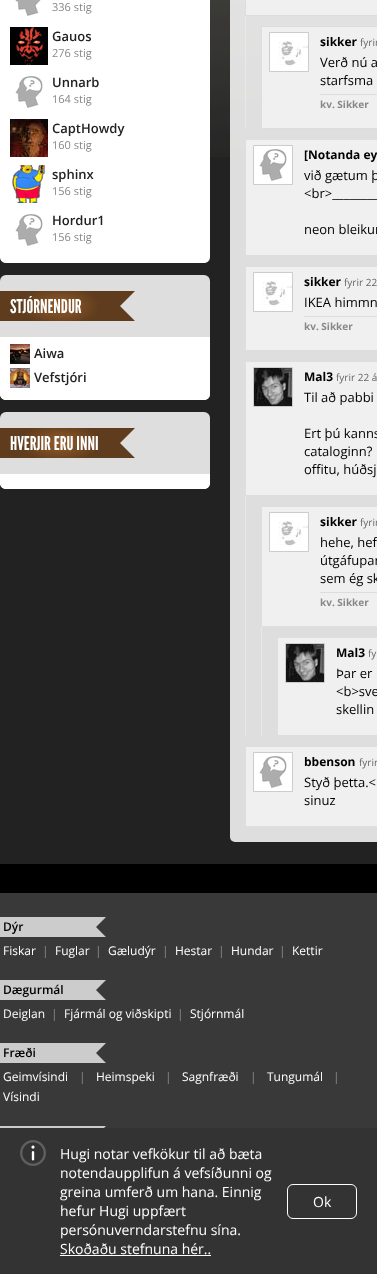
<svg xmlns="http://www.w3.org/2000/svg" width="377" height="1274">
<style>
.a{font:11px Open Sans;fill:#888}
.b{font:600 13px Open Sans;fill:#222}
.c{font:19px League Gothic;fill:#fff}
.d{font:bold 12px Open Sans;fill:#000}
.e{font:10px Open Sans;fill:#666}
.f{font:13px Open Sans;fill:#000}
.g{font:bold 10px Open Sans;fill:#888}
.h{font:600 12px Open Sans;fill:#000}
.i{font:12px Open Sans;fill:#fff}
.j{font:12px Open Sans;fill:#888}
.k{font:14px Open Sans;fill:#fff}
</style>
<defs>
<radialGradient id="g1" gradientUnits="userSpaceOnUse" cx="0" cy="0" r="1" gradientTransform="matrix(40 0 0 20 60 306)"><stop offset="0" stop-color="#925c2c"/><stop offset="1" stop-color="#5f3c1d"/></radialGradient>
<radialGradient id="g2" gradientUnits="userSpaceOnUse" cx="0" cy="0" r="1" gradientTransform="matrix(40 0 0 20 60 443)"><stop offset="0" stop-color="#925c2c"/><stop offset="1" stop-color="#5f3c1d"/></radialGradient>
</defs>
<rect width="100%" height="100%" fill="#222"/>
<image href="1.png" x="210" y="0" width="167" height="157"/>
<path fill="#fff" d="M0-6h210v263c0 3.5-2.5 6-6 6h-198c-3.5 0-6-2.5-6-6z"/>
<image href="2.png" x="15" y="0" width="26" height="16"/>
<image href="3.png" x="10" y="27" width="38" height="38"/>
<image href="4.png" x="15" y="76" width="28" height="32"/>
<image href="5.png" x="10" y="119" width="38" height="38"/>
<image href="6.png" x="12" y="165" width="33" height="38"/>
<image href="4.png" x="15" y="214" width="28" height="32"/>
<rect fill="#dedede" y="275" width="210" height="125" rx="6"/>
<path fill="url(#g1)" d="M0 291h120v30H0z"/>
<path fill="#5f3c1d" d="M120 291h15l-15 15zm15 30h-15v-15z"/>
<path fill="#fff" d="M0 337h210v57c0 3.5-2.5 6-6 6h-198c-3.5 0-6-2.5-6-6z"/>
<image href="7.png" x="10" y="344" width="20" height="20"/>
<image href="8.png" x="10" y="368" width="20" height="20"/>
<rect fill="#dedede" y="412" width="210" height="77" rx="6"/>
<path fill="url(#g2)" d="M0 428h120v30H0z"/>
<path fill="#5f3c1d" d="M120 428h15l-15 15zm15 30h-15v-15z"/>
<path fill="#fff" d="M0 474h210v9c0 3.5-2.5 6-6 6h-198c-3.5 0-6-2.5-6-6z"/>
<rect fill="#ffffffd9" x="230" y="-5" width="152" height="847" rx="5"/>
<path fill="#e8e8e8" d="M245 16h1v113H245z"/>
<path fill="#f0f0f0" stroke="#ddd" d="M245.5 -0.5h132v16H245.5z"/>
<path fill="#f0f0f0" stroke="#ddd" d="M261.5 26.5h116v102H261.5z"/>
<path fill="none" stroke="#ccc" d="M269.5 32.5h39v39H269.5z"/>
<image href="9.png" x="270" y="33" width="38" height="38"/>
<path fill="#ddd" d="M320 94h57v1H320z"/>
<path fill="#f0f0f0" d="M246 140h131v115H246z"/>
<path fill="none" stroke="#ccc" d="M253.5 145.5h39v39H253.5z"/>
<image href="10.png" x="254" y="146" width="38" height="38"/>
<path fill="#f0f0f0" d="M246 267h131v83H246z"/>
<path fill="none" stroke="#ccc" d="M253.5 272.5h39v39H253.5z"/>
<image href="9.png" x="254" y="273" width="38" height="38"/>
<path fill="#ddd" d="M304 316h73v1H304z"/>
<path fill="#e8e8e8" d="M245 496h1v240H245z"/>
<path fill="#f0f0f0" d="M246 362h131v133H246z"/>
<path fill="none" stroke="#ccc" d="M253.5 367.5h39v39H253.5z"/>
<image href="11.png" x="254" y="368" width="38" height="38"/>
<path fill="#e8e8e8" d="M261 627h1v109H261z"/>
<path fill="#f0f0f0" d="M262 507h115v119H262z"/>
<path fill="none" stroke="#ccc" d="M269.5 512.5h39v39H269.5z"/>
<image href="9.png" x="270" y="513" width="38" height="38"/>
<path fill="#ddd" d="M320 592h57v1H320z"/>
<path fill="#f0f0f0" d="M278 638h99v97H278z"/>
<path fill="none" stroke="#ccc" d="M285.5 643.5h39v39H285.5z"/>
<image href="11.png" x="286" y="644" width="38" height="38"/>
<path fill="#f0f0f0" d="M246 747h131v79H246z"/>
<path fill="none" stroke="#ccc" d="M253.5 752.5h39v39H253.5z"/>
<image href="10.png" x="254" y="753" width="38" height="38"/>
<path fill="#393939" d="M0 893h377v235H0z"/>
<path fill="#000" d="M0 864h377v29H0z"/>
<path fill="#ccc" d="M0 917h96v20H0z"/>
<path fill="#ccc" d="M96 917h10l-10 10zm10 20h-10v-10z"/>
<path fill="#ccc" d="M0 980h96v20H0z"/>
<path fill="#ccc" d="M96 980h10l-10 10zm10 20h-10v-10z"/>
<path fill="#ccc" d="M0 1043h96v20H0z"/>
<path fill="#ccc" d="M96 1043h10l-10 10zm10 20h-10v-10z"/>
<path fill="#ccc" d="M0 1126h96v2H0z"/>
<path fill="#ccc" d="M96 1126h10l-10 10z"/>
<path fill="#333" d="M0 1128h377v146H0z"/>
<image href="12.png" x="20" y="1140" width="26" height="26"/>
<path fill="#fff" d="M60 1255h151v1H60z"/>
<rect fill="none" stroke="#fff" x="287.5" y="1184.5" width="69" height="34" rx="5.5"/>
<text class="a" x="52" y="11">336 stig</text>
<text class="b" x="52" y="41">Gauos</text>
<text class="a" x="52" y="57">276 stig</text>
<text class="b" x="52" y="87">Unnarb</text>
<text class="a" x="52" y="103">164 stig</text>
<text class="b" x="52" y="133">CaptHowdy</text>
<text class="a" x="52" y="149">160 stig</text>
<text class="b" x="52" y="179">sphinx</text>
<text class="a" x="52" y="195">156 stig</text>
<text class="b" x="52" y="225">Hordur1</text>
<text class="a" x="52" y="241">156 stig</text>
<text class="c" x="10" y="313">STJÓRNENDUR</text>
<text class="b" x="34" y="358">Aiwa</text>
<text class="b" x="34" y="382">Vefstjóri</text>
<text class="c" x="10" y="450">HVERJIR ERU INNI</text>
<text class="d" x="320" y="46">sikker</text>
<text class="e" x="360" y="46">fyrir</text>
<text class="f" x="320" y="67">Verð nú a</text>
<text class="f" x="320" y="85">starfsma</text>
<text class="g" x="320" y="108">kv. Sikker</text>
<text class="d" x="304" y="159">[Notanda ey</text>
<text class="f" x="304" y="180">við gætum þ</text>
<text class="f" x="304" y="198">&lt;br&gt;________</text>
<text class="f" x="304" y="234">neon bleikur</text>
<text class="d" x="304" y="286">sikker</text>
<text class="e" x="344" y="286">fyrir 22</text>
<text class="f" x="304" y="307">IKEA himmn</text>
<text class="g" x="304" y="330">kv. Sikker</text>
<text class="d" x="304" y="381">Mal3</text>
<text class="e" x="336" y="381">fyrir 22 á</text>
<text class="f" x="304" y="402">Til að pabbi</text>
<text class="f" x="304" y="438">Ert þú kanns</text>
<text class="f" x="304" y="456">cataloginn?</text>
<text class="f" x="304" y="474">offitu, húðsj</text>
<text class="d" x="320" y="526">sikker</text>
<text class="e" x="360" y="526">fyrir</text>
<text class="f" x="320" y="547">hehe, hef</text>
<text class="f" x="320" y="565">útgáfupar</text>
<text class="f" x="320" y="583">sem ég sk</text>
<text class="g" x="320" y="606">kv. Sikker</text>
<text class="d" x="336" y="657">Mal3</text>
<text class="e" x="368" y="657">fy</text>
<text class="f" x="336" y="678">Þar er</text>
<text class="f" x="336" y="696">&lt;b&gt;sve</text>
<text class="f" x="336" y="714">skellin</text>
<text class="d" x="304" y="766">bbenson</text>
<text class="e" x="359" y="766">fyrir</text>
<text class="f" x="304" y="787">Styð þetta.&lt;</text>
<text class="f" x="304" y="805">sinuz</text>
<text class="h" x="3" y="931">Dýr</text>
<text class="i" x="3" y="955">Fiskar</text>
<text class="j" x="42" y="955">|</text>
<text class="i" x="55" y="955">Fuglar</text>
<text class="j" x="95" y="955">|</text>
<text class="i" x="108" y="955">Gæludýr</text>
<text class="j" x="162" y="955">|</text>
<text class="i" x="175" y="955">Hestar</text>
<text class="j" x="218" y="955">|</text>
<text class="i" x="231" y="955">Hundar</text>
<text class="j" x="279" y="955">|</text>
<text class="i" x="292" y="955">Kettir</text>
<text class="h" x="3" y="994">Dægurmál</text>
<text class="i" x="3" y="1018">Deiglan</text>
<text class="j" x="51" y="1018">|</text>
<text class="i" x="64" y="1018">Fjármál og viðskipti</text>
<text class="j" x="177" y="1018">|</text>
<text class="i" x="190" y="1018">Stjórnmál</text>
<text class="h" x="3" y="1057">Fræði</text>
<text class="i" x="3" y="1081">Geimvísindi</text>
<text class="j" x="79" y="1081">|</text>
<text class="i" x="96" y="1081">Heimspeki</text>
<text class="j" x="165" y="1081">|</text>
<text class="i" x="182" y="1081">Sagnfræði</text>
<text class="j" x="250" y="1081">|</text>
<text class="i" x="267" y="1081">Tungumál</text>
<text class="j" x="333" y="1081">|</text>
<text class="i" x="3" y="1101">Vísindi</text>
<text class="k" x="60" y="1159">Hugi notar vefkökur til að bæta</text>
<text class="k" x="60" y="1178">notendaupplifun á vefsíðunni og</text>
<text class="k" x="60" y="1197">greina umferð um hana. Einnig</text>
<text class="k" x="60" y="1216">hefur Hugi uppfært</text>
<text class="k" x="60" y="1235">persónuverndarstefnu sína.</text>
<text class="k" x="60" y="1254">Skoðaðu stefnuna hér..</text>
<text class="k" x="313" y="1207">Ok</text>
</svg>
